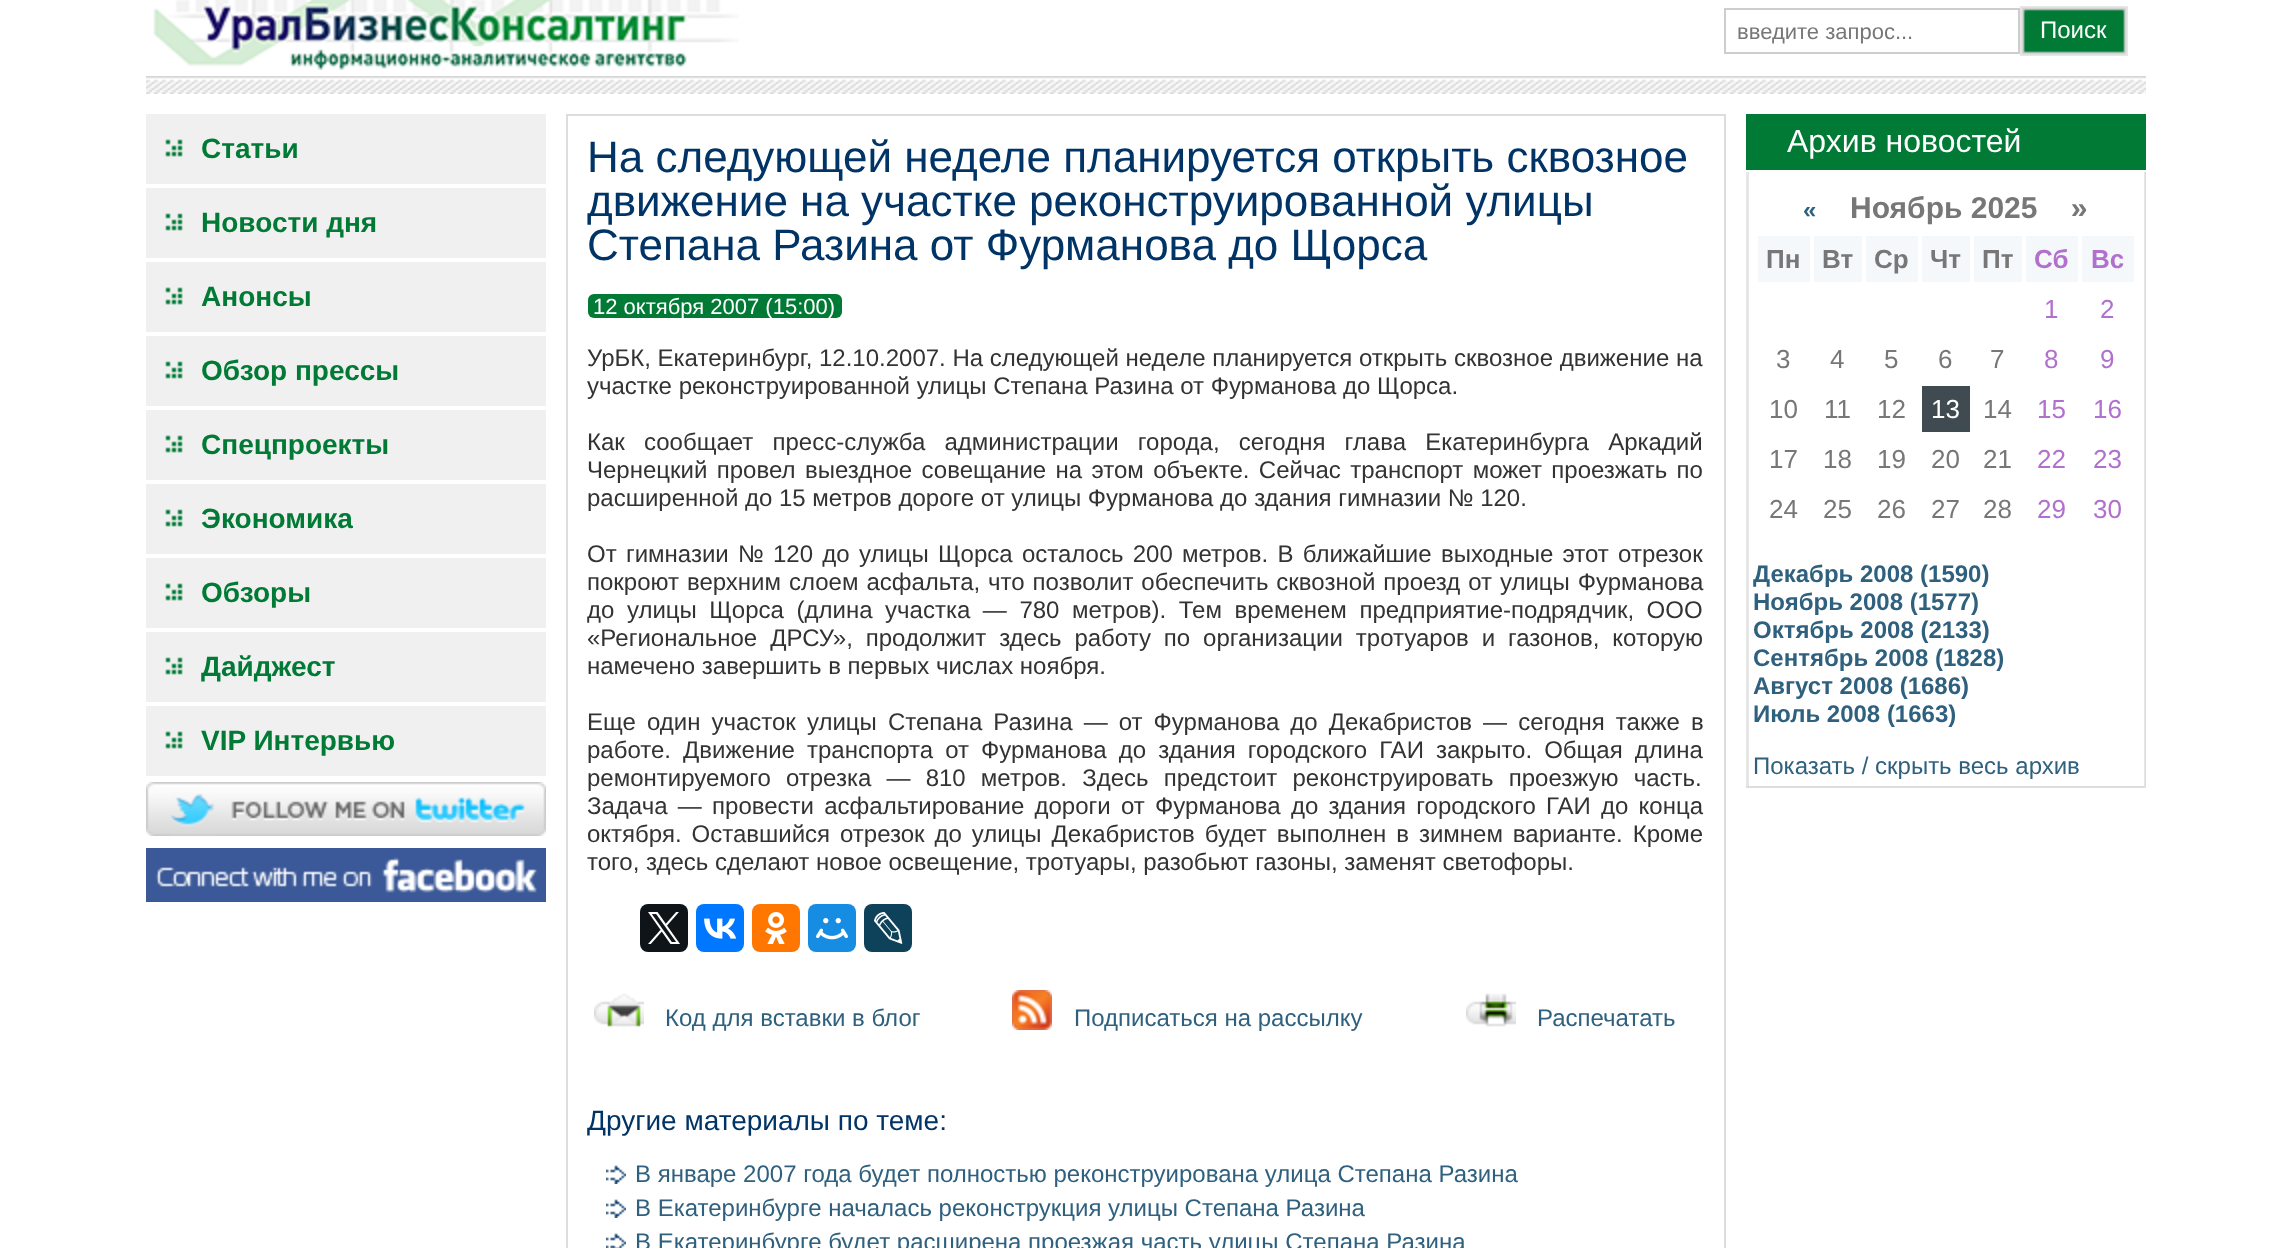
<svg xmlns="http://www.w3.org/2000/svg" width="2290" height="1248">
<style>
.a{font:22px Liberation Sans;fill:#777}
.b{font:24px Liberation Sans;fill:#f9fafb}
.c{font:bold 28px Liberation Sans;fill:#007a35}
.d{font:44px Liberation Sans;fill:#036}
.e{font:22px Liberation Sans;fill:#fff}
.f{font:24px Liberation Sans;fill:#333}
.g{font:24px Liberation Sans;fill:#2f617f}
.h{font:28px Liberation Sans;fill:#036}
.i{font:32px Liberation Sans;fill:#fff}
.j{font:bold 24px Liberation Sans;fill:#2f617f}
.k{font:bold 30px Liberation Sans;fill:#777}
.l{font:bold 26px Liberation Sans;fill:#777}
.m{font:bold 26px Liberation Sans;fill:#b270ce}
.n{font:26px Liberation Sans;fill:#b270ce}
.o{font:26px Liberation Sans;fill:#777}
.p{font:26px Liberation Sans;fill:#fff}
</style>
<rect width="100%" height="100%" fill="#fff"/>
<image href="1.png" x="153" y="0" width="586" height="70"/>
<path fill="none" stroke="#cdcdcd" stroke-width="2" d="M1725 9h294v44H1725z"/>
<image href="2.png" x="2020" y="6" width="98" height="50"/>
<image href="3.png" x="2118" y="6" width="10" height="50"/>
<image href="4.png" x="146" y="76" width="2000" height="18"/>
<image href="5.png" x="146" y="114" width="364" height="70"/>
<path fill="#f0f0f0" d="M510 114h36v70H510z"/>
<image href="5.png" x="146" y="188" width="364" height="70"/>
<path fill="#f0f0f0" d="M510 188h36v70H510z"/>
<image href="5.png" x="146" y="262" width="364" height="70"/>
<path fill="#f0f0f0" d="M510 262h36v70H510z"/>
<image href="5.png" x="146" y="336" width="364" height="70"/>
<path fill="#f0f0f0" d="M510 336h36v70H510z"/>
<image href="5.png" x="146" y="410" width="364" height="70"/>
<path fill="#f0f0f0" d="M510 410h36v70H510z"/>
<image href="5.png" x="146" y="484" width="364" height="70"/>
<path fill="#f0f0f0" d="M510 484h36v70H510z"/>
<image href="5.png" x="146" y="558" width="364" height="70"/>
<path fill="#f0f0f0" d="M510 558h36v70H510z"/>
<image href="5.png" x="146" y="632" width="364" height="70"/>
<path fill="#f0f0f0" d="M510 632h36v70H510z"/>
<image href="5.png" x="146" y="706" width="364" height="70"/>
<path fill="#f0f0f0" d="M510 706h36v70H510z"/>
<image href="6.png" x="146" y="782" width="400" height="54"/>
<image href="7.png" x="146" y="848" width="400" height="54"/>
<path fill="none" stroke="#ddd" stroke-width="2" d="M567 115h1158v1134H567z"/>
<rect fill="#007a35" x="588" y="294" width="254" height="24" rx="6"/>
<rect fill="#0f1419" x="640" y="904" width="48" height="48" rx="8"/>
<image href="8.png" x="648" y="912" width="32" height="32"/>
<rect fill="#07f" x="696" y="904" width="48" height="48" rx="8"/>
<image href="9.png" x="704" y="918" width="33" height="21"/>
<rect fill="#f70" x="752" y="904" width="48" height="48" rx="8"/>
<image href="10.png" x="765" y="912" width="22" height="32"/>
<rect fill="#168de2" x="808" y="904" width="48" height="48" rx="8"/>
<image href="11.png" x="816" y="918" width="32" height="22"/>
<rect fill="#0d425a" x="864" y="904" width="48" height="48" rx="8"/>
<image href="12.png" x="874" y="912" width="29" height="32"/>
<image href="13.png" x="594" y="993" width="50" height="34"/>
<image href="14.png" x="1012" y="990" width="40" height="40"/>
<image href="15.png" x="1466" y="993" width="50" height="34"/>
<image href="16.png" x="606" y="1165" width="20" height="19"/>
<image href="16.png" x="606" y="1199" width="20" height="19"/>
<image href="17.png" x="606" y="1233" width="20" height="15"/>
<path fill="#007a35" d="M1746 114h400v56H1746z"/>
<path fill="#e6e6e6" d="M1746 172h3v614H1746z"/>
<path fill="#f4f8fa" d="M1758 236h52v46H1758z"/>
<path fill="#f4f8fa" d="M1814 236h48v46H1814z"/>
<path fill="#f4f8fa" d="M1866 236h52v46H1866z"/>
<path fill="#f4f8fa" d="M1922 236h48v46H1922z"/>
<path fill="#f4f8fa" d="M1974 236h48v46H1974z"/>
<path fill="#f4f8fa" d="M2026 236h52v46H2026z"/>
<path fill="#f4f8fa" d="M2082 236h52v46H2082z"/>
<path fill="#3f4b51" d="M1922 386h48v46H1922z"/>
<image href="18.png" x="2144" y="172" width="2" height="614"/>
<path fill="#ddd" d="M1746 786h398v2H1746z"/>
<path fill="#dfdfdf" d="M2144 786h2v2H2144z"/>
<text class="a" x="1737" y="39">введите запрос...</text>
<text class="b" x="2040" y="38">Поиск</text>
<text class="c" x="201" y="158">Статьи</text>
<text class="c" x="201" y="232">Новости дня</text>
<text class="c" x="201" y="306">Анонсы</text>
<text class="c" x="201" y="380">Обзор прессы</text>
<text class="c" x="201" y="454">Спецпроекты</text>
<text class="c" x="201" y="528">Экономика</text>
<text class="c" x="201" y="602">Обзоры</text>
<text class="c" x="201" y="676">Дайджест</text>
<text class="c" x="201" y="750">VIP Интервью</text>
<text class="d" x="587" y="172">На следующей неделе планируется открыть сквозное</text>
<text class="d" x="587" y="216">движение на участке реконструированной улицы</text>
<text class="d" x="587" y="260">Степана Разина от Фурманова до Щорса</text>
<text class="e" x="593" y="314">12 октября 2007 (15:00)</text>
<text class="f" x="587" y="366">УрБК, Екатеринбург, 12.10.2007. На следующей неделе планируется открыть сквозное движение на</text>
<text class="f" x="587" y="394">участке реконструированной улицы Степана Разина от Фурманова до Щорса.</text>
<text class="f" x="587" y="450" word-spacing="12.5">Как сообщает пресс-служба администрации города, сегодня глава Екатеринбурга Аркадий</text>
<text class="f" x="587" y="478" word-spacing="2.75">Чернецкий провел выездное совещание на этом объекте. Сейчас транспорт может проезжать по</text>
<text class="f" x="587" y="506">расширенной до 15 метров дороге от улицы Фурманова до здания гимназии № 120.</text>
<text class="f" x="587" y="562" word-spacing="2.6">От гимназии № 120 до улицы Щорса осталось 200 метров. В ближайшие выходные этот отрезок</text>
<text class="f" x="587" y="590" word-spacing="1.25">покроют верхним</text>
<text class="f" x="789" y="590" word-spacing="1.25">слоем асфальта, что позволит обеспечить сквозной проезд от улицы Фурманова</text>
<text class="f" x="587" y="618" word-spacing="5.9">до улицы Щорса (длина участка — 780 метров). Тем временем предприятие-подрядчик, ООО</text>
<text class="f" x="587" y="646" word-spacing="6.25">«Региональное ДРСУ», продолжит здесь работу по организации тротуаров и газонов, которую</text>
<text class="f" x="587" y="674">намечено завершить в первых числах ноября.</text>
<text class="f" x="587" y="730" word-spacing="4.4">Еще один участок улицы Степана Разина — от Фурманова до Декабристов — сегодня также в</text>
<text class="f" x="587" y="758" word-spacing="5.4">работе. Движение транспорта от Фурманова до здания городского ГАИ закрыто. Общая длина</text>
<text class="f" x="587" y="786" word-spacing="8.5">ремонтируемого отрезка — 810 метров. Здесь предстоит реконструировать проезжую часть.</text>
<text class="f" x="587" y="814" word-spacing="3.6">Задача — провести асфальтирование дороги от Фурманова до здания городского ГАИ до конца</text>
<text class="f" x="587" y="842" word-spacing="3.25">октября. Оставшийся отрезок до улицы Декабристов будет выполнен в зимнем варианте. Кроме</text>
<text class="f" x="587" y="870">того, здесь сделают новое освещение, тротуары, разобьют газоны, заменят светофоры.</text>
<text class="g" x="665" y="1026">Код для вставки в блог</text>
<text class="g" x="1074" y="1026">Подписаться на рассылку</text>
<text class="g" x="1537" y="1026">Распечатать</text>
<text class="h" x="587" y="1130">Другие материалы по теме:</text>
<text class="g" x="635" y="1182">В январе 2007 года будет полностью реконструирована улица Степана Разина</text>
<text class="g" x="635" y="1216">В Екатеринбурге началась реконструкция улицы Степана Разина</text>
<text class="g" x="635" y="1250">В Екатеринбурге будет расширена проезжая часть улицы Степана Разина</text>
<text class="i" x="1787" y="152">Архив новостей</text>
<text class="j" x="1803" y="218">«</text>
<text class="k" xml:space="preserve" x="1850" y="218">Ноябрь 2025    »</text>
<text class="l" x="1766" y="268">Пн</text>
<text class="l" x="1822" y="268">Вт</text>
<text class="l" x="1874" y="268">Ср</text>
<text class="l" x="1930" y="268">Чт</text>
<text class="l" x="1982" y="268">Пт</text>
<text class="m" x="2034" y="268">Сб</text>
<text class="m" x="2091" y="268">Вс</text>
<text class="n" x="2044" y="318">1</text>
<text class="n" x="2100" y="318">2</text>
<text class="o" x="1776" y="368">3</text>
<text class="o" x="1830" y="368">4</text>
<text class="o" x="1884" y="368">5</text>
<text class="o" x="1938" y="368">6</text>
<text class="o" x="1990" y="368">7</text>
<text class="n" x="2044" y="368">8</text>
<text class="n" x="2100" y="368">9</text>
<text class="o" x="1769" y="418">10</text>
<text class="o" x="1824" y="418">11</text>
<text class="o" x="1877" y="418">12</text>
<text class="p" x="1931" y="418">13</text>
<text class="o" x="1983" y="418">14</text>
<text class="n" x="2037" y="418">15</text>
<text class="n" x="2093" y="418">16</text>
<text class="o" x="1769" y="468">17</text>
<text class="o" x="1823" y="468">18</text>
<text class="o" x="1877" y="468">19</text>
<text class="o" x="1931" y="468">20</text>
<text class="o" x="1983" y="468">21</text>
<text class="n" x="2037" y="468">22</text>
<text class="n" x="2093" y="468">23</text>
<text class="o" x="1769" y="518">24</text>
<text class="o" x="1823" y="518">25</text>
<text class="o" x="1877" y="518">26</text>
<text class="o" x="1931" y="518">27</text>
<text class="o" x="1983" y="518">28</text>
<text class="n" x="2037" y="518">29</text>
<text class="n" x="2093" y="518">30</text>
<text class="j" x="1753" y="582">Декабрь 2008 (1590)</text>
<text class="j" x="1753" y="610">Ноябрь 2008 (1577)</text>
<text class="j" x="1753" y="638">Октябрь 2008 (2133)</text>
<text class="j" x="1753" y="666">Сентябрь 2008 (1828)</text>
<text class="j" x="1753" y="694">Август 2008 (1686)</text>
<text class="j" x="1753" y="722">Июль 2008 (1663)</text>
<text class="g" x="1753" y="774">Показать / скрыть весь архив</text>
</svg>
